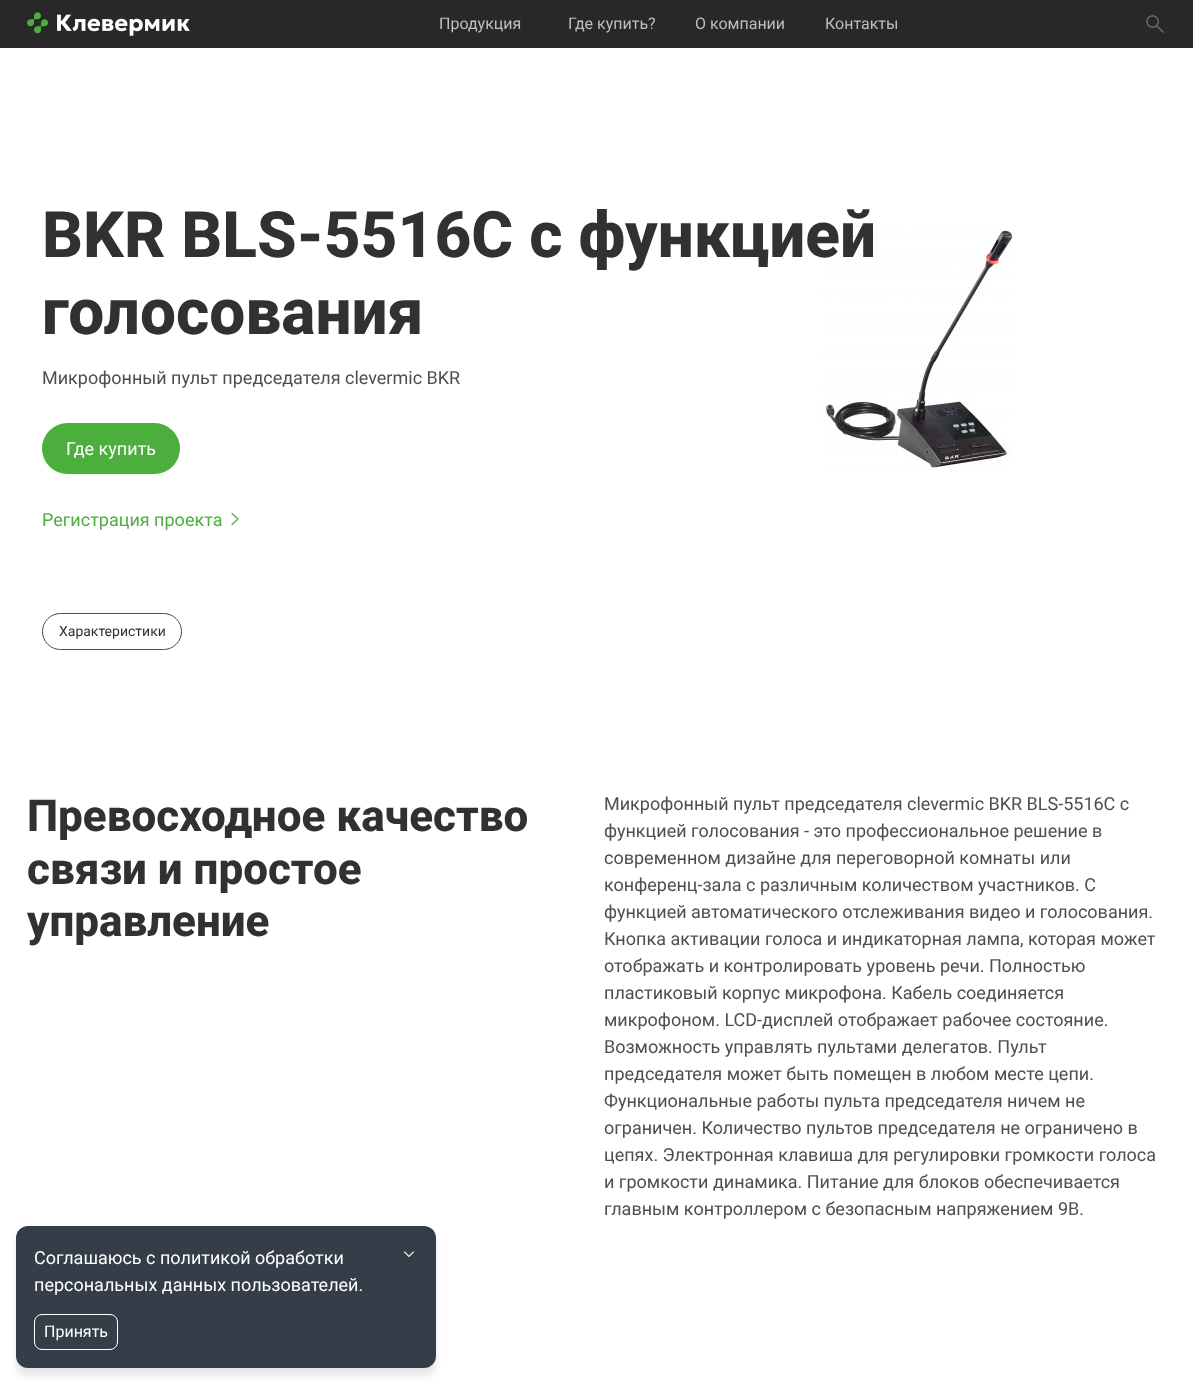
<svg xmlns="http://www.w3.org/2000/svg" width="1193" height="1384">
<style>
.a{font:16px Roboto;fill:#bfbfbf}
.b{font:800 64px Roboto;fill:#313131}
.c{font:18px Roboto;fill:#4e4e4e}
.d{font:18px Roboto;fill:#fff}
.e{font:18px Roboto;fill:#4bae3d}
.f{font:14px Roboto;fill:#313131}
.g{font:800 44px Roboto;fill:#313131}
.h{font:16px Roboto;fill:#fff}
</style>
<rect width="100%" height="100%" fill="#fff"/>
<path fill="#282828" d="M0 0h1193v48H0z"/>
<image href="1.png" x="27" y="12" width="163" height="24"/>
<image href="2.png" x="1146" y="15" width="18" height="18"/>
<image href="3.png" x="821" y="230" width="192" height="240"/>
<rect fill="#4bae3d" x="42" y="423" width="138" height="51" rx="25.5"/>
<path fill="none" stroke="#4bae3d" stroke-width="1.2" stroke-linecap="round" stroke-linejoin="round" d="M232 524.5l6-5.5l-6-5.5"/>
<rect fill="none" stroke="#4e4e4e" x="42.5" y="613.5" width="139" height="36" rx="18"/>
<rect fill="#00081e1a" filter="blur(3px)" x="16" y="1234" width="420" height="142" rx="12"/>
<rect fill="#353e48" x="16" y="1226" width="420" height="142" rx="12"/>
<image href="4.png" x="404" y="1251" width="10" height="6"/>
<rect fill="none" stroke="#fff" x="34.5" y="1314.5" width="83" height="35" rx="7.5"/>
<text class="a" x="439" y="29">Продукция</text>
<text class="a" x="568" y="29">Где купить?</text>
<text class="a" x="695" y="29">О компании</text>
<text class="a" x="825" y="29">Контакты</text>
<text class="b" x="42" y="257">BKR BLS-5516C с функцией</text>
<text class="b" x="42" y="334">голосования</text>
<text class="c" x="42" y="384">Микрофонный пульт председателя clevermic BKR</text>
<text class="d" x="66" y="455">Где купить</text>
<text class="e" x="42" y="526">Регистрация проекта</text>
<text class="f" x="59" y="636">Характеристики</text>
<text class="g" x="27" y="831">Превосходное качество</text>
<text class="g" x="27" y="884">связи и простое</text>
<text class="g" x="27" y="936">управление</text>
<text class="c" x="604" y="810">Микрофонный пульт председателя clevermic BKR BLS-5516C с</text>
<text class="c" x="604" y="837">функцией голосования - это профессиональное решение в</text>
<text class="c" x="604" y="864">современном дизайне для переговорной комнаты или</text>
<text class="c" x="604" y="891">конференц-зала с различным количеством участников. С</text>
<text class="c" x="604" y="918">функцией автоматического отслеживания видео и голосования.</text>
<text class="c" x="604" y="945">Кнопка активации голоса и индикаторная лампа, которая может</text>
<text class="c" x="604" y="972">отображать и контролировать уровень речи. Полностью</text>
<text class="c" x="604" y="999">пластиковый корпус микрофона. Кабель соединяется</text>
<text class="c" x="604" y="1026">микрофоном. LCD-дисплей отображает рабочее состояние.</text>
<text class="c" x="604" y="1053">Возможность управлять пультами делегатов. Пульт</text>
<text class="c" x="604" y="1080">председателя может быть помещен в любом месте цепи.</text>
<text class="c" x="604" y="1107">Функциональные работы пульта председателя ничем не</text>
<text class="c" x="604" y="1134">ограничен. Количество пультов председателя не ограничено в</text>
<text class="c" x="604" y="1161">цепях. Электронная клавиша для регулировки громкости голоса</text>
<text class="c" x="604" y="1188">и громкости динамика. Питание для блоков обеспечивается</text>
<text class="c" x="604" y="1215">главным контроллером с безопасным напряжением 9В.</text>
<text class="d" x="34" y="1264">Соглашаюсь с политикой обработки</text>
<text class="d" x="34" y="1291">персональных данных пользователей.</text>
<text class="h" x="44" y="1337">Принять</text>
</svg>
